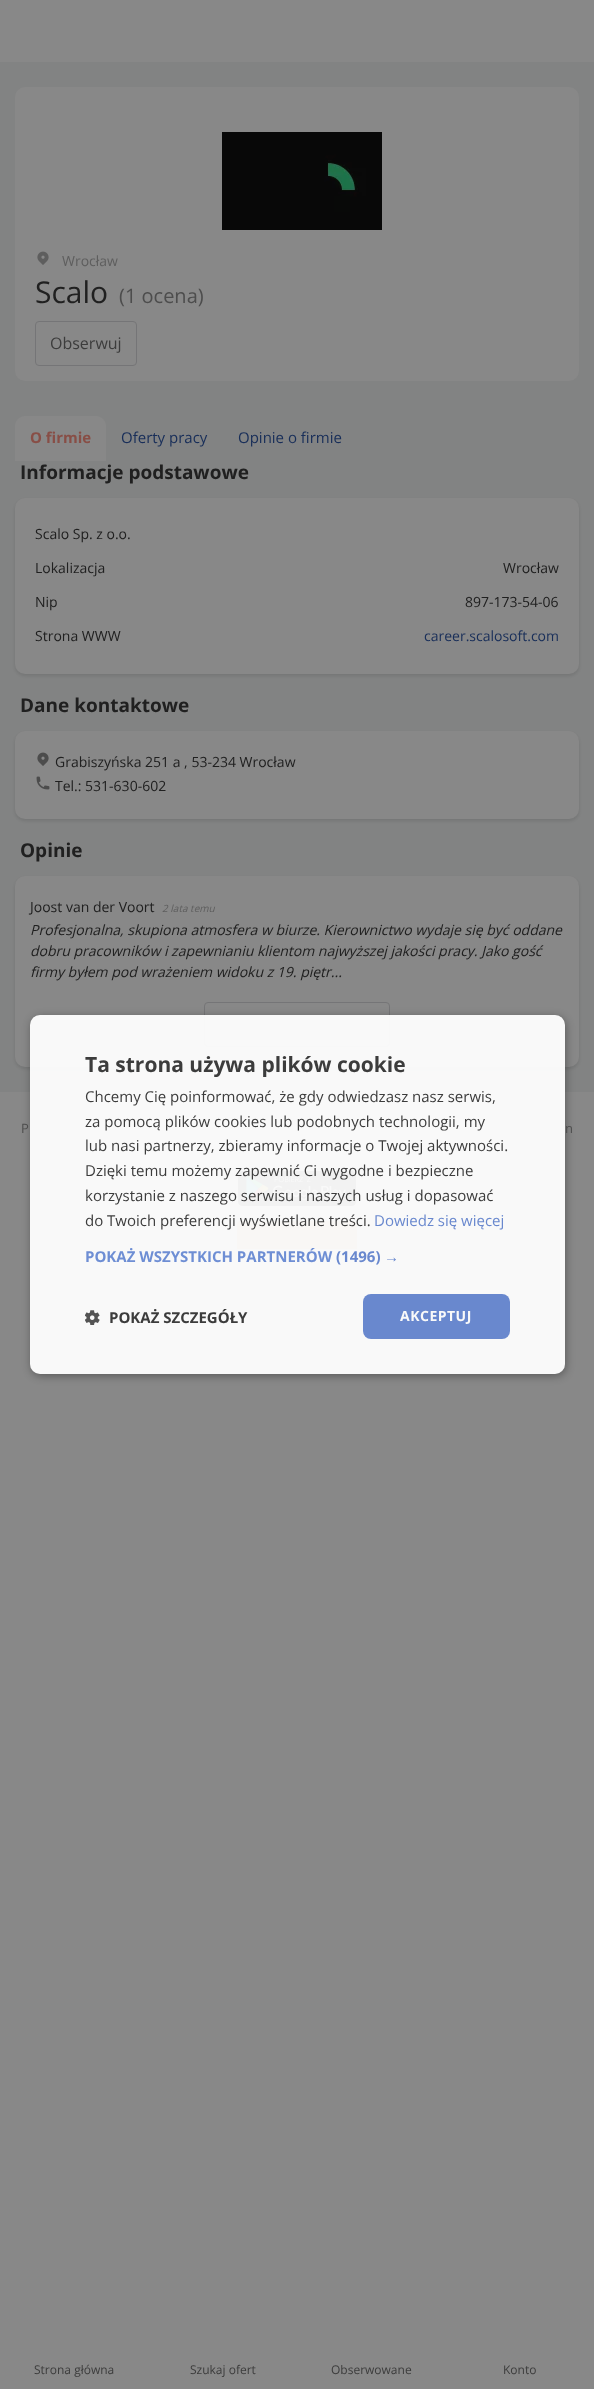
<svg xmlns="http://www.w3.org/2000/svg" width="594" height="2389">
<style>
.a{font:14px Open Sans;fill:#5e5e5e}
.b{font:30px Open Sans;fill:#202020}
.c{font:20px Open Sans;fill:#4d4d4d}
.d{font:16px Open Sans;fill:#3c3c3c}
.e{font:bold 15px Open Sans;fill:#884e46}
.f{font:15px Open Sans;fill:#182e59}
.g{font:bold 19px Open Sans;fill:#202020}
.h{font:14px Open Sans;fill:#202020}
.i{font:14px Open Sans;fill:#182e59}
.j{font:italic 10px Open Sans;fill:#5e5e5e}
.k{font:italic 14px Open Sans;fill:#202020}
.l{font:bold 21px Open Sans;fill:#3c3c3c}
.m{font:15px Open Sans;fill:#3c3c3c}
.n{font:15px Open Sans;fill:#6988ce}
.o{font:bold 15px Open Sans;fill:#6e8ed4}
.p{font:bold 15px Open Sans;fill:#6988ce}
.q{font:bold 15px Liberation Sans;fill:#6988ce}
.r{font:bold 15px Open Sans;fill:#3c3c3c}
.s{font:bold 14px Open Sans;letter-spacing:0.5px;fill:#f9f9f9}
.t{font:13px Open Sans;fill:#4d4d4d}
.u{font:12px Open Sans;fill:#3c3c3c}
</style>
<defs>
<clipPath id="clip1"><path d="M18 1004h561v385h-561zm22 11h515c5.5 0 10 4.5 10 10v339c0 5.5-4.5 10-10 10h-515c-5.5 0-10-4.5-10-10v-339c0-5.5 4.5-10 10-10z" clip-rule="evenodd"/></clipPath>
</defs>
<rect width="100%" height="100%" fill="#888"/>
<path fill="#828383" d="M0 62h594v1030H0z"/>
<rect fill="#888" x="15" y="87" width="564" height="294" rx="10"/>
<image href="1.png" x="222" y="132" width="160" height="98"/>
<image href="2.png" x="37" y="251" width="12" height="14"/>
<rect fill="none" stroke="#757577" x="35.5" y="321.5" width="101" height="44" rx="3.5"/>
<path fill="#888" d="M25 416h71c5.5 0 10 4.5 10 10v35h-91v-35c0-5.5 4.5-10 10-10z"/>
<rect fill="#0909091a" filter="blur(1.5px)" x="15" y="500" width="564" height="176" rx="10"/>
<rect fill="#888" x="15" y="498" width="564" height="176" rx="10"/>
<rect fill="#0909091a" filter="blur(1.5px)" x="15" y="733" width="564" height="88" rx="10"/>
<rect fill="#888" x="15" y="731" width="564" height="88" rx="10"/>
<image href="3.png" x="37" y="752" width="12" height="14"/>
<image href="4.png" x="36" y="776" width="14" height="14"/>
<rect fill="#0909091a" filter="blur(1.5px)" x="15" y="878" width="564" height="191" rx="10"/>
<rect fill="#888" x="15" y="876" width="564" height="191" rx="10"/>
<rect fill="none" stroke="#757577" x="204.5" y="1002.5" width="185" height="44" rx="3.5"/>
<image href="6.png" x="238" y="1171" width="118" height="35"/>
<path fill="#816a42" d="M240 1221h114c1.5 0 3 1.5 3 3v25h-120v-25c0-1.5 1.5-3 3-3z"/>
<g clip-path="url(#clip1)">
<rect fill="#00000054" filter="blur(4px)" x="31" y="1017" width="535" height="359" rx="10"/>
</g>
<rect fill="#fffffff2" x="30" y="1015" width="535" height="359" rx="10"/>
<image href="5.png" x="85" y="1310" width="15" height="15"/>
<rect fill="#6988ce" x="363" y="1294" width="147" height="45" rx="8"/>
<text class="a" x="62" y="266">Wrocław</text>
<text class="b" x="35" y="303">Scalo</text>
<text class="c" x="119" y="303">(1 ocena)</text>
<text class="d" x="50" y="349">Obserwuj</text>
<text class="e" x="30" y="443">O firmie</text>
<text class="f" x="121" y="443">Oferty pracy</text>
<text class="f" x="238" y="443">Opinie o firmie</text>
<text class="g" x="20" y="479">Informacje podstawowe</text>
<text class="h" x="35" y="539">Scalo Sp. z o.o.</text>
<text class="h" x="35" y="573">Lokalizacja</text>
<text class="h" x="503" y="573">Wrocław</text>
<text class="h" x="35" y="607">Nip</text>
<text class="h" x="465" y="607">897-173-54-06</text>
<text class="h" x="35" y="641">Strona WWW</text>
<text class="i" x="424" y="641">career.scalosoft.com</text>
<text class="g" x="20" y="712">Dane kontaktowe</text>
<text class="h" x="55" y="767">Grabiszyńska 251 a , 53-234 Wrocław</text>
<text class="h" x="55" y="791">Tel.: 531-630-602</text>
<text class="g" x="20" y="857">Opinie</text>
<text class="h" x="30" y="912">Joost van der Voort</text>
<text class="j" x="162" y="912">2 lata temu</text>
<text class="k" x="30" y="935">Profesjonalna, skupiona atmosfera w biurze. Kierownictwo wydaje się być oddane</text>
<text class="k" x="30" y="956">dobru pracowników i zapewnianiu klientom najwyższej jakości pracy. Jako gość</text>
<text class="k" x="30" y="977">firmy byłem pod wrażeniem widoku z 19. piętr...</text>
<text class="l" x="85" y="1072">Ta strona używa plików cookie</text>
<text class="m" x="85" y="1102">Chcemy Cię poinformować, że gdy odwiedzasz nasz serwis,</text>
<text class="m" x="85" y="1127">za pomocą plików cookies lub podobnych technologii, my</text>
<text class="m" x="85" y="1151">lub nasi partnerzy, zbieramy informacje o Twojej aktywności.</text>
<text class="m" x="85" y="1176">Dzięki temu możemy zapewnić Ci wygodne i bezpieczne</text>
<text class="m" x="85" y="1201">korzystanie z naszego serwisu i naszych usług i dopasować</text>
<text class="m" x="85" y="1226">do Twoich preferencji wyświetlane treści.</text>
<text class="n" x="374" y="1226">Dowiedz się więcej</text>
<text class="o" x="85" y="1262">POKAŻ WSZYSTKICH PARTNERÓW</text>
<text class="p" x="336" y="1262">(1496)</text>
<text class="q" x="384" y="1262">→</text>
<text class="r" x="109" y="1323">POKAŻ SZCZEGÓŁY</text>
<text class="s" x="400" y="1321">AKCEPTUJ</text>
<text class="t" x="21" y="1133">P</text>
<text class="t" x="565" y="1133">n</text>
<text class="u" x="34" y="2374">Strona główna</text>
<text class="u" x="190" y="2374">Szukaj ofert</text>
<text class="u" x="331" y="2374">Obserwowane</text>
<text class="u" x="503" y="2374">Konto</text>
</svg>
